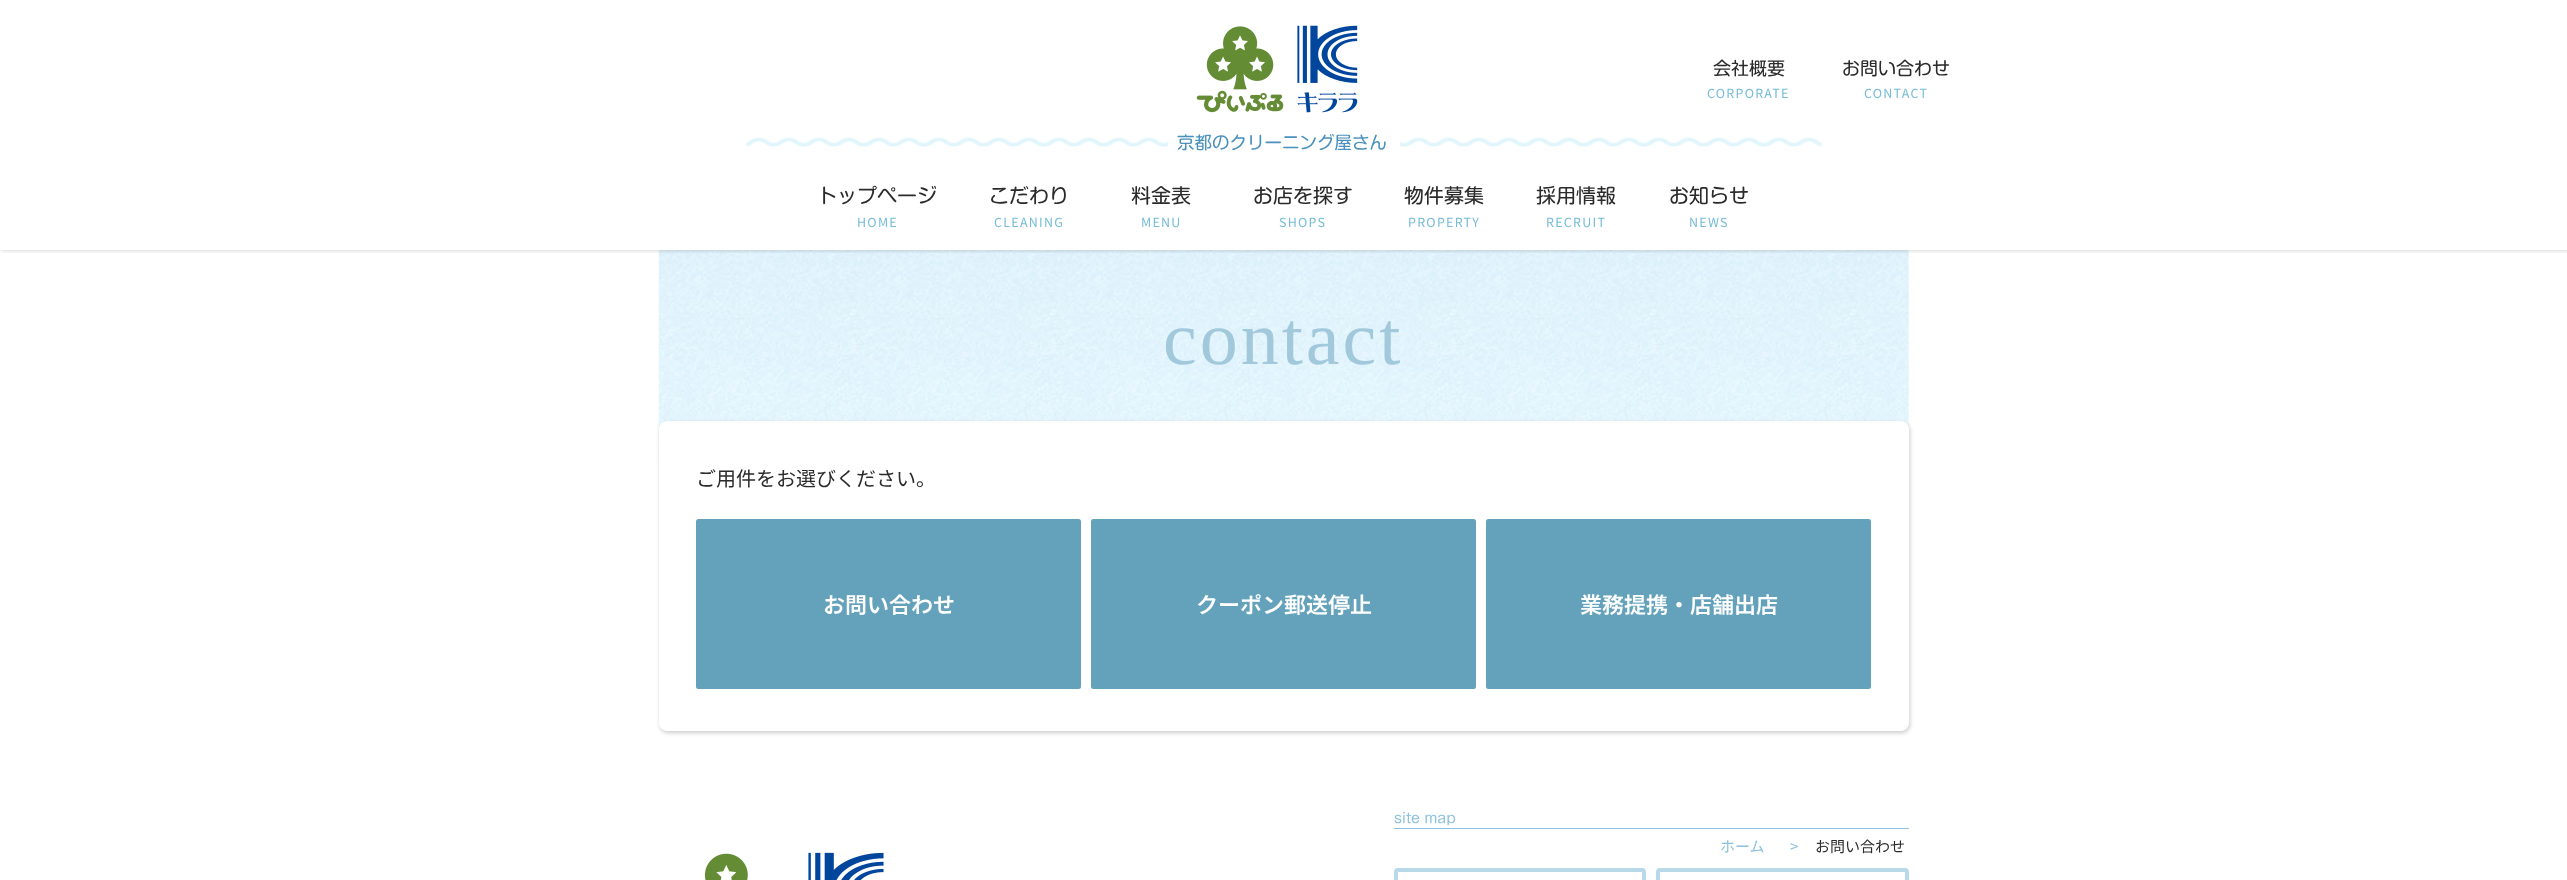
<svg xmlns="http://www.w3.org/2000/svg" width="2567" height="880">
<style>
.a{font:18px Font;fill:#2b2b2b}
.b{font:12.5px Noto Sans JP;letter-spacing:1.25px;fill:#75bcd6}
.c{font:20px Font;fill:#2b2b2b}
.d{font:17.5px Font;fill:#4a91be}
.e{font:76px Liberation Serif;letter-spacing:3px;fill:#a1c9db}
.f{font:20px Noto Sans JP;fill:#2b2b2b}
.g{font:600 22px Noto Sans JP;fill:#fff}
.h{font:13.75px Font;fill:#8cc2dd}
.i{font:15px Noto Sans JP;fill:#8cc2dd}
.j{font:15px Noto Sans JP;fill:#2b2b2b}
</style>
<defs>
<clipPath id="clip1"><path d="M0 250h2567v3H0z"/></clipPath>
</defs>
<rect width="100%" height="100%" fill="#fff"/>
<image href="4.png" x="658" y="250" width="1251" height="211"/>
<g clip-path="url(#clip1)">
<path fill="#00000026" filter="blur(2px)" d="M1 1h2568v250H1z"/>
</g>
<image href="1.png" x="1196" y="26" width="88" height="87"/>
<image href="2.png" x="1297" y="25" width="61" height="88"/>
<image href="3.png" x="746" y="137" width="1076" height="10"/>
<path fill="#fff" d="M1168 137h232v10H1168z"/>
<rect fill="#00000033" filter="blur(2px)" x="660" y="423" width="1250" height="310" rx="8"/>
<rect fill="#fff" x="659" y="421" width="1250" height="310" rx="8"/>
<rect fill="#64a2bc" x="696" y="519" width="385" height="170" rx="2.5"/>
<rect fill="#64a2bc" x="1091" y="519" width="385" height="170" rx="2.5"/>
<rect fill="#64a2bc" x="1486" y="519" width="385" height="170" rx="2.5"/>
<path fill="#8cc2dd" d="M1394 828h515v1H1394z"/>
<rect fill="none" stroke="#b8d9e9" stroke-width="4" x="1396" y="870" width="248" height="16" rx="2"/>
<rect fill="none" stroke="#b8d9e9" stroke-width="4" x="1658" y="870" width="249" height="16" rx="2"/>
<image href="5.png" x="704" y="853" width="44" height="27"/>
<image href="6.png" x="808" y="852" width="76" height="28"/>
<text class="a" x="1713" y="75">会社概要</text>
<text class="b" x="1707" y="98">CORPORATE</text>
<text class="a" x="1842" y="75">お問い合わせ</text>
<text class="b" x="1864" y="98">CONTACT</text>
<text class="c" x="817" y="203">トップページ</text>
<text class="b" x="857" y="227">HOME</text>
<text class="c" x="989" y="203">こだわり</text>
<text class="b" x="994" y="227">CLEANING</text>
<text class="c" x="1131" y="203">料金表</text>
<text class="b" x="1141" y="227">MENU</text>
<text class="c" x="1253" y="203">お店を探す</text>
<text class="b" x="1279" y="227">SHOPS</text>
<text class="c" x="1404" y="203">物件募集</text>
<text class="b" x="1408" y="227">PROPERTY</text>
<text class="c" x="1536" y="203">採用情報</text>
<text class="b" x="1546" y="227">RECRUIT</text>
<text class="c" x="1669" y="203">お知らせ</text>
<text class="b" x="1689" y="227">NEWS</text>
<text class="d" x="1177" y="149">京都のクリーニング屋さん</text>
<text class="e" x="1163" y="364">contact</text>
<text class="f" x="696" y="486">ご用件をお選びください。</text>
<text class="g" x="823" y="613">お問い合わせ</text>
<text class="g" x="1196" y="613">クーポン郵送停止</text>
<text class="g" x="1580" y="613">業務提携・店舗出店</text>
<text class="h" x="1394" y="823">site map</text>
<text class="i" x="1720" y="852">ホーム</text>
<text class="i" x="1790" y="852">&gt;</text>
<text class="j" x="1815" y="852">お問い合わせ</text>
</svg>
